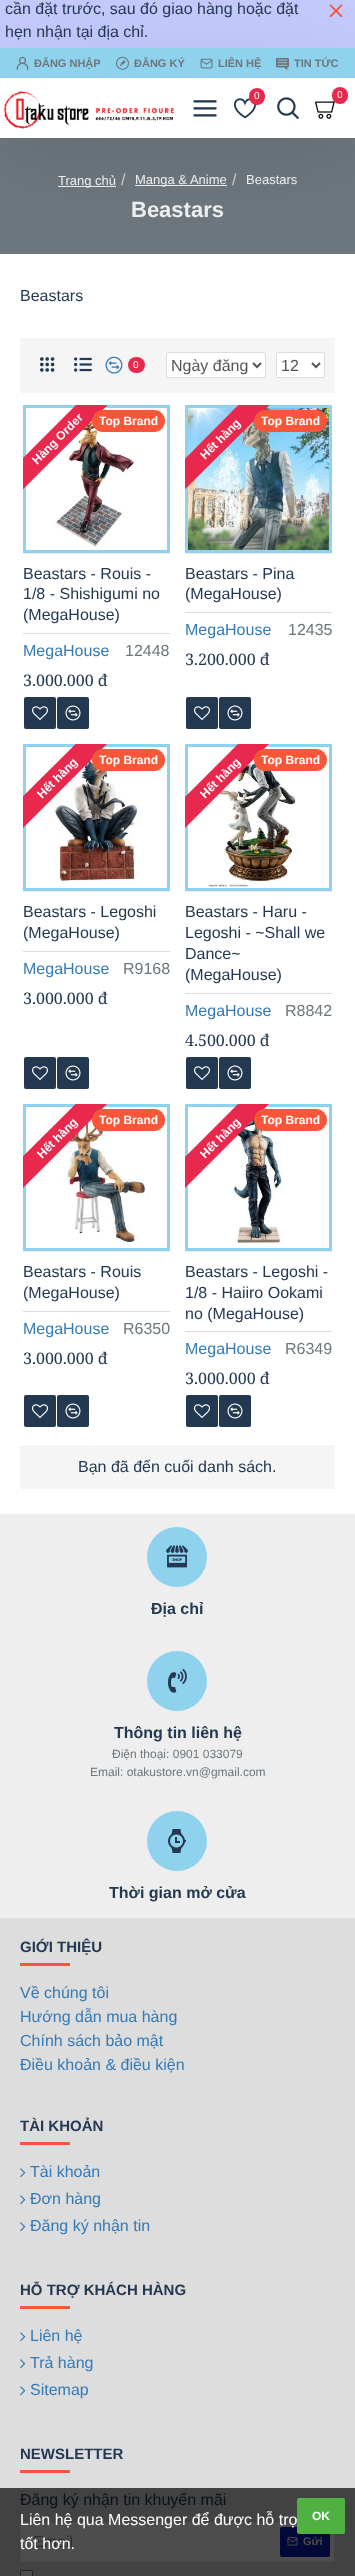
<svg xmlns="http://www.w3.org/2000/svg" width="355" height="2576">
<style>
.a{font:16px Liberation Sans;fill:#233851}
.b{font:bold 11px Liberation Sans;fill:#6d767d}
.c{font:10px Liberation Sans;fill:#fff}
.d{font:13px Liberation Sans;fill:#eee}
.e{font:16px Liberation Sans;fill:#ccc}
.f{font:bold 22px Liberation Sans;fill:#eee}
.g{font:16px Liberation Sans;fill:#555}
.h{font:bold 12px Liberation Sans;fill:#fff}
.i{font:16px Liberation Sans;fill:#337ab7}
.j{font:16px Liberation Sans;fill:#6d767d}
.k{font:16px Noto Serif;fill:#233851}
.l{font:bold 16px Liberation Sans;fill:#233851}
.m{font:12px Liberation Sans;fill:#6d767d}
.n{font:bold 15px Liberation Sans;fill:#233851}
.o{font:16px Liberation Sans;fill:#0b1118}
.p{font:16px Liberation Sans;fill:#2e2e2e}
.q{font:bold 11px Liberation Sans;fill:#4d4d4d}
.r{font:16px Liberation Sans;fill:#fff}
</style>
<defs>
<clipPath id="clip1"><path d="M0 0h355v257h-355zm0 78h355v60h-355z" clip-rule="evenodd"/></clipPath>
<clipPath id="clip2"><path d="M23 405h147v148H23z"/></clipPath>
<clipPath id="clip3"><path d="M185 405h147v148H185z"/></clipPath>
<clipPath id="clip4"><path d="M23 744h147v147H23z"/></clipPath>
<clipPath id="clip5"><path d="M185 744h147v147H185z"/></clipPath>
<clipPath id="clip6"><path d="M23 1104h147v147H23z"/></clipPath>
<clipPath id="clip7"><path d="M185 1104h147v147H185z"/></clipPath>
</defs>
<rect width="100%" height="100%" fill="#fff"/>
<path fill="#c4cafd" d="M0 0h355v48H0z"/>
<image href="1.png" x="329" y="4" width="14" height="14"/>
<path fill="#6d767d" d="M0 138h355v116H0z"/>
<path fill="#eee" d="M58 186h58v1H58z"/>
<path fill="#eee" d="M135 185h92v1H135z"/>
<g clip-path="url(#clip1)">
<path fill="#00000033" filter="blur(42.5px)" d="M10 88h335v40H10z"/>
</g>
<path fill="#8fd2ee" d="M0 48h355v30H0z"/>
<image href="2.png" x="16" y="56" width="13" height="14"/>
<image href="3.png" x="116" y="56" width="13" height="14"/>
<image href="4.png" x="200" y="58" width="13" height="11"/>
<image href="5.png" x="276" y="57" width="13" height="14"/>
<image href="6.png" x="4" y="91" width="170" height="38"/>
<image href="7.png" x="234" y="98" width="22" height="21"/>
<rect fill="#e8284d" x="249" y="88" width="16" height="17" rx="8"/>
<image href="8.png" x="315" y="100" width="20" height="19"/>
<rect fill="#e8284d" x="332" y="87" width="16" height="17" rx="8"/>
<image href="9.png" x="193" y="100" width="24" height="17"/>
<image href="10.png" x="277" y="97" width="22" height="22"/>
<rect fill="#f5f5f5" x="20" y="338" width="315" height="55" rx="2"/>
<image href="11.png" x="40" y="357" width="15" height="15"/>
<image href="12.png" x="74" y="357" width="18" height="15"/>
<image href="13.png" x="105" y="356" width="18" height="18"/>
<rect fill="#e8284d" x="128" y="357" width="17" height="16" rx="8"/>
<rect fill="#fff" stroke="#ddd" x="166.5" y="352.5" width="99" height="25" rx="1.5"/>
<path fill="none" stroke="#555" stroke-width="2" d="M253 363l4 4l4-4"/>
<rect fill="#fff" stroke="#ddd" x="276.5" y="352.5" width="48" height="25" rx="1.5"/>
<path fill="none" stroke="#555" stroke-width="2" d="M312 363l4 4l4-4"/>
<path fill="none" stroke="#8fd2ee" stroke-width="3" d="M24.5 406.5h144v145H24.5z"/>
<image href="14.png" x="53" y="412" width="81" height="137"/>
<g clip-path="url(#clip2)">
<path fill="#e8284d" d="M-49 530l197-197c4-4 11-4 16 0c4 4 4 11 0 16l-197 196c-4 4-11 4-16 0c-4-4-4-11 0-15z"/>
</g>
<rect fill="#f85639" x="92" y="410" width="73" height="22" rx="11"/>
<path fill="#eee" d="M23 553h147v1H23z"/>
<path fill="#ddd" d="M23 633h147v1H23z"/>
<rect fill="#233851" x="24" y="697" width="32" height="32" rx="2"/>
<image href="15.png" x="32" y="706" width="16" height="14"/>
<rect fill="#233851" x="57" y="697" width="32" height="32" rx="2"/>
<image href="16.png" x="65" y="705" width="16" height="16"/>
<path fill="none" stroke="#8fd2ee" stroke-width="3" d="M186.5 406.5h144v145H186.5z"/>
<image href="17.png" x="188" y="408" width="141" height="142"/>
<g clip-path="url(#clip3)">
<path fill="#e8284d" d="M114 530l196-197c5-4 12-4 16 0c4 4 4 11 0 16l-197 196c-4 4-11 4-15 0c-4-4-4-11 0-15z"/>
</g>
<rect fill="#f85639" x="254" y="410" width="73" height="22" rx="11"/>
<path fill="#eee" d="M185 553h147v1H185z"/>
<path fill="#ddd" d="M185 612h147v1H185z"/>
<rect fill="#233851" x="186" y="697" width="32" height="32" rx="2"/>
<image href="15.png" x="194" y="706" width="16" height="14"/>
<rect fill="#233851" x="219" y="697" width="32" height="32" rx="2"/>
<image href="16.png" x="227" y="705" width="16" height="16"/>
<path fill="none" stroke="#8fd2ee" stroke-width="3" d="M24.5 745.5h144v144H24.5z"/>
<image href="18.png" x="53" y="755" width="87" height="128"/>
<g clip-path="url(#clip4)">
<path fill="#e8284d" d="M-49 868l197-196c4-4 11-4 16 0c4 4 4 11 0 15l-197 197c-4 4-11 4-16 0c-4-4-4-11 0-16z"/>
</g>
<rect fill="#f85639" x="92" y="749" width="73" height="22" rx="11"/>
<path fill="#eee" d="M23 891h147v1H23z"/>
<path fill="#ddd" d="M23 951h147v1H23z"/>
<rect fill="#233851" x="24" y="1057" width="32" height="32" rx="2"/>
<image href="15.png" x="32" y="1066" width="16" height="14"/>
<rect fill="#233851" x="57" y="1057" width="32" height="32" rx="2"/>
<image href="16.png" x="65" y="1065" width="16" height="16"/>
<path fill="none" stroke="#8fd2ee" stroke-width="3" d="M186.5 745.5h144v144H186.5z"/>
<image href="19.png" x="207" y="759" width="89" height="128"/>
<g clip-path="url(#clip5)">
<path fill="#e8284d" d="M114 868l196-196c5-4 12-4 16 0c4 4 4 11 0 15l-197 197c-4 4-11 4-15 0c-4-4-4-11 0-16z"/>
</g>
<rect fill="#f85639" x="254" y="749" width="73" height="22" rx="11"/>
<path fill="#eee" d="M185 891h147v1H185z"/>
<path fill="#ddd" d="M185 993h147v1H185z"/>
<rect fill="#233851" x="186" y="1057" width="32" height="32" rx="2"/>
<image href="15.png" x="194" y="1066" width="16" height="14"/>
<rect fill="#233851" x="219" y="1057" width="32" height="32" rx="2"/>
<image href="16.png" x="227" y="1065" width="16" height="16"/>
<path fill="none" stroke="#8fd2ee" stroke-width="3" d="M24.5 1105.5h144v144H24.5z"/>
<image href="20.png" x="53" y="1116" width="95" height="127"/>
<g clip-path="url(#clip6)">
<path fill="#e8284d" d="M-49 1228l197-196c4-5 11-5 16 0c4 4 4 11 0 15l-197 197c-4 4-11 4-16 0c-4-5-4-12 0-16z"/>
</g>
<rect fill="#f85639" x="92" y="1109" width="73" height="22" rx="11"/>
<path fill="#eee" d="M23 1251h147v1H23z"/>
<path fill="#ddd" d="M23 1311h147v1H23z"/>
<rect fill="#233851" x="24" y="1395" width="32" height="32" rx="2"/>
<image href="15.png" x="32" y="1404" width="16" height="14"/>
<rect fill="#233851" x="57" y="1395" width="32" height="32" rx="2"/>
<image href="16.png" x="65" y="1403" width="16" height="16"/>
<path fill="none" stroke="#8fd2ee" stroke-width="3" d="M186.5 1105.5h144v144H186.5z"/>
<image href="21.png" x="229" y="1107" width="54" height="136"/>
<g clip-path="url(#clip7)">
<path fill="#e8284d" d="M114 1228l196-196c5-5 12-5 16 0c4 4 4 11 0 15l-197 197c-4 4-11 4-15 0c-4-5-4-12 0-16z"/>
</g>
<rect fill="#f85639" x="254" y="1109" width="73" height="22" rx="11"/>
<path fill="#eee" d="M185 1251h147v1H185z"/>
<path fill="#ddd" d="M185 1331h147v1H185z"/>
<rect fill="#233851" x="186" y="1395" width="32" height="32" rx="2"/>
<image href="15.png" x="194" y="1404" width="16" height="14"/>
<rect fill="#233851" x="219" y="1395" width="32" height="32" rx="2"/>
<image href="16.png" x="227" y="1403" width="16" height="16"/>
<rect fill="#f5f5f5" x="20" y="1445" width="315" height="44" rx="2"/>
<path fill="#ddd" d="M0 1918h355v570H0z"/>
<path fill="#424242" d="M0 2488h355v88H0z"/>
<path fill="#eee" d="M0 1514h355v404H0z"/>
<circle fill="#8fd2ee" cx="177" cy="1557" r="30"/>
<image href="22.png" x="166" y="1545" width="22" height="23"/>
<circle fill="#8fd2ee" cx="177" cy="1681" r="30"/>
<image href="23.png" x="168" y="1669" width="19" height="24"/>
<circle fill="#8fd2ee" cx="177" cy="1841" r="30"/>
<image href="24.png" x="168" y="1829" width="18" height="24"/>
<path fill="#f85639" d="M20 1963h50v3H20z"/>
<path fill="#f85639" d="M20 2142h50v3H20z"/>
<image href="25.png" x="20" y="2168" width="6" height="10"/>
<image href="25.png" x="20" y="2195" width="6" height="10"/>
<image href="25.png" x="20" y="2222" width="6" height="10"/>
<path fill="#f85639" d="M20 2306h50v3H20z"/>
<image href="25.png" x="20" y="2332" width="6" height="10"/>
<image href="25.png" x="20" y="2359" width="6" height="10"/>
<image href="25.png" x="20" y="2386" width="6" height="10"/>
<path fill="#f85639" d="M20 2470h50v3H20z"/>
<rect fill="#4d4d4d" stroke="#474747" x="20.5" y="2522.5" width="314" height="39" rx="1.5"/>
<rect fill="#020938" x="280" y="2527" width="50" height="30" rx="2"/>
<image href="26.png" x="287" y="2537" width="11" height="9"/>
<rect fill="#4d4d4d" stroke="#232323" x="20.5" y="2570.5" width="12" height="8" rx="1.5"/>
<text class="a" x="5" y="14">cần đặt trước, sau đó giao hàng hoặc đặt</text>
<text class="a" x="5" y="37">hẹn nhận tại địa chỉ.</text>
<text class="b" x="34" y="67">ĐĂNG NHẬP</text>
<text class="b" x="134" y="67">ĐĂNG KÝ</text>
<text class="b" x="218" y="67">LIÊN HỆ</text>
<text class="b" x="294" y="67">TIN TỨC</text>
<text class="c" x="254" y="99">0</text>
<text class="c" x="337" y="98">0</text>
<text class="d" x="58" y="185">Trang chủ</text>
<text class="e" x="121" y="185">/</text>
<text class="d" x="135" y="184">Manga &amp; Anime</text>
<text class="e" x="232" y="185">/</text>
<text class="d" x="246" y="184">Beastars</text>
<text class="f" x="131" y="217">Beastars</text>
<text class="a" x="20" y="301">Beastars</text>
<text class="c" x="133" y="368">0</text>
<text class="g" x="171" y="371">Ngày đăng</text>
<text class="g" x="281" y="371">12</text>
<text class="h" x="37" y="465" transform="rotate(-45 37 465)">Hàng Order</text>
<text class="h" x="99" y="425">Top Brand</text>
<text class="a" x="23" y="579">Beastars - Rouis -</text>
<text class="a" x="23" y="599">1/8 - Shishigumi no</text>
<text class="a" x="23" y="620">(MegaHouse)</text>
<text class="i" x="23" y="656">MegaHouse</text>
<text class="j" x="125" y="656">12448</text>
<text class="k" x="23" y="686">3.000.000 đ</text>
<text class="h" x="205" y="460" transform="rotate(-45 205 460)">Hết hàng</text>
<text class="h" x="261" y="425">Top Brand</text>
<text class="a" x="185" y="579">Beastars - Pina</text>
<text class="a" x="185" y="599">(MegaHouse)</text>
<text class="i" x="185" y="635">MegaHouse</text>
<text class="j" x="288" y="635">12435</text>
<text class="k" x="185" y="665">3.200.000 đ</text>
<text class="h" x="42" y="799" transform="rotate(-45 42 799)">Hết hàng</text>
<text class="h" x="99" y="764">Top Brand</text>
<text class="a" x="23" y="917">Beastars - Legoshi</text>
<text class="a" x="23" y="938">(MegaHouse)</text>
<text class="i" x="23" y="974">MegaHouse</text>
<text class="j" x="123" y="974">R9168</text>
<text class="k" x="23" y="1004">3.000.000 đ</text>
<text class="h" x="205" y="799" transform="rotate(-45 205 799)">Hết hàng</text>
<text class="h" x="261" y="764">Top Brand</text>
<text class="a" x="185" y="917">Beastars - Haru -</text>
<text class="a" x="185" y="938">Legoshi - ~Shall we</text>
<text class="a" x="185" y="959">Dance~</text>
<text class="a" x="185" y="980">(MegaHouse)</text>
<text class="i" x="185" y="1016">MegaHouse</text>
<text class="j" x="285" y="1016">R8842</text>
<text class="k" x="185" y="1046">4.500.000 đ</text>
<text class="h" x="42" y="1159" transform="rotate(-45 42 1159)">Hết hàng</text>
<text class="h" x="99" y="1124">Top Brand</text>
<text class="a" x="23" y="1277">Beastars - Rouis</text>
<text class="a" x="23" y="1298">(MegaHouse)</text>
<text class="i" x="23" y="1334">MegaHouse</text>
<text class="j" x="123" y="1334">R6350</text>
<text class="k" x="23" y="1364">3.000.000 đ</text>
<text class="h" x="205" y="1159" transform="rotate(-45 205 1159)">Hết hàng</text>
<text class="h" x="261" y="1124">Top Brand</text>
<text class="a" x="185" y="1277">Beastars - Legoshi -</text>
<text class="a" x="185" y="1298">1/8 - Haiiro Ookami</text>
<text class="a" x="185" y="1319">no (MegaHouse)</text>
<text class="i" x="185" y="1354">MegaHouse</text>
<text class="j" x="285" y="1354">R6349</text>
<text class="k" x="185" y="1384">3.000.000 đ</text>
<text class="a" x="78" y="1472">Bạn đã đến cuối danh sách.</text>
<text class="l" x="151" y="1614">Địa chỉ</text>
<text class="l" x="114" y="1738">Thông tin liên hệ</text>
<text class="m" x="112" y="1758">Điện thoại: 0901 033079</text>
<text class="m" x="90" y="1776">Email: otakustore.vn@gmail.com</text>
<text class="l" x="109" y="1898">Thời gian mở cửa</text>
<text class="n" x="20" y="1952">GIỚI THIỆU</text>
<text class="i" x="20" y="1998">Về chúng tôi</text>
<text class="i" x="20" y="2022">Hướng dẫn mua hàng</text>
<text class="i" x="20" y="2046">Chính sách bảo mật</text>
<text class="i" x="20" y="2070">Điều khoản &amp; điều kiện</text>
<text class="n" x="20" y="2131">TÀI KHOẢN</text>
<text class="i" x="30" y="2177">Tài khoản</text>
<text class="i" x="30" y="2204">Đơn hàng</text>
<text class="i" x="30" y="2231">Đăng ký nhận tin</text>
<text class="n" x="20" y="2295">HỖ TRỢ KHÁCH HÀNG</text>
<text class="i" x="30" y="2341">Liên hệ</text>
<text class="i" x="30" y="2368">Trả hàng</text>
<text class="i" x="30" y="2395">Sitemap</text>
<text class="n" x="20" y="2459">NEWSLETTER</text>
<text class="o" x="20" y="2505">Đăng ký nhận tin khuyến mãi</text>
<text class="p" x="33" y="2547">Email</text>
<text class="q" x="303" y="2545">Gửi</text>
<text class="r" x="20" y="2525">Liên hệ qua Messenger để được hỗ trợ</text>
<text class="r" x="20" y="2549">tốt hơn.</text>
<rect fill="#4eb142" x="297" y="2498" width="48" height="36" rx="2"/>
<text class="h" x="312" y="2520">OK</text>
</svg>
